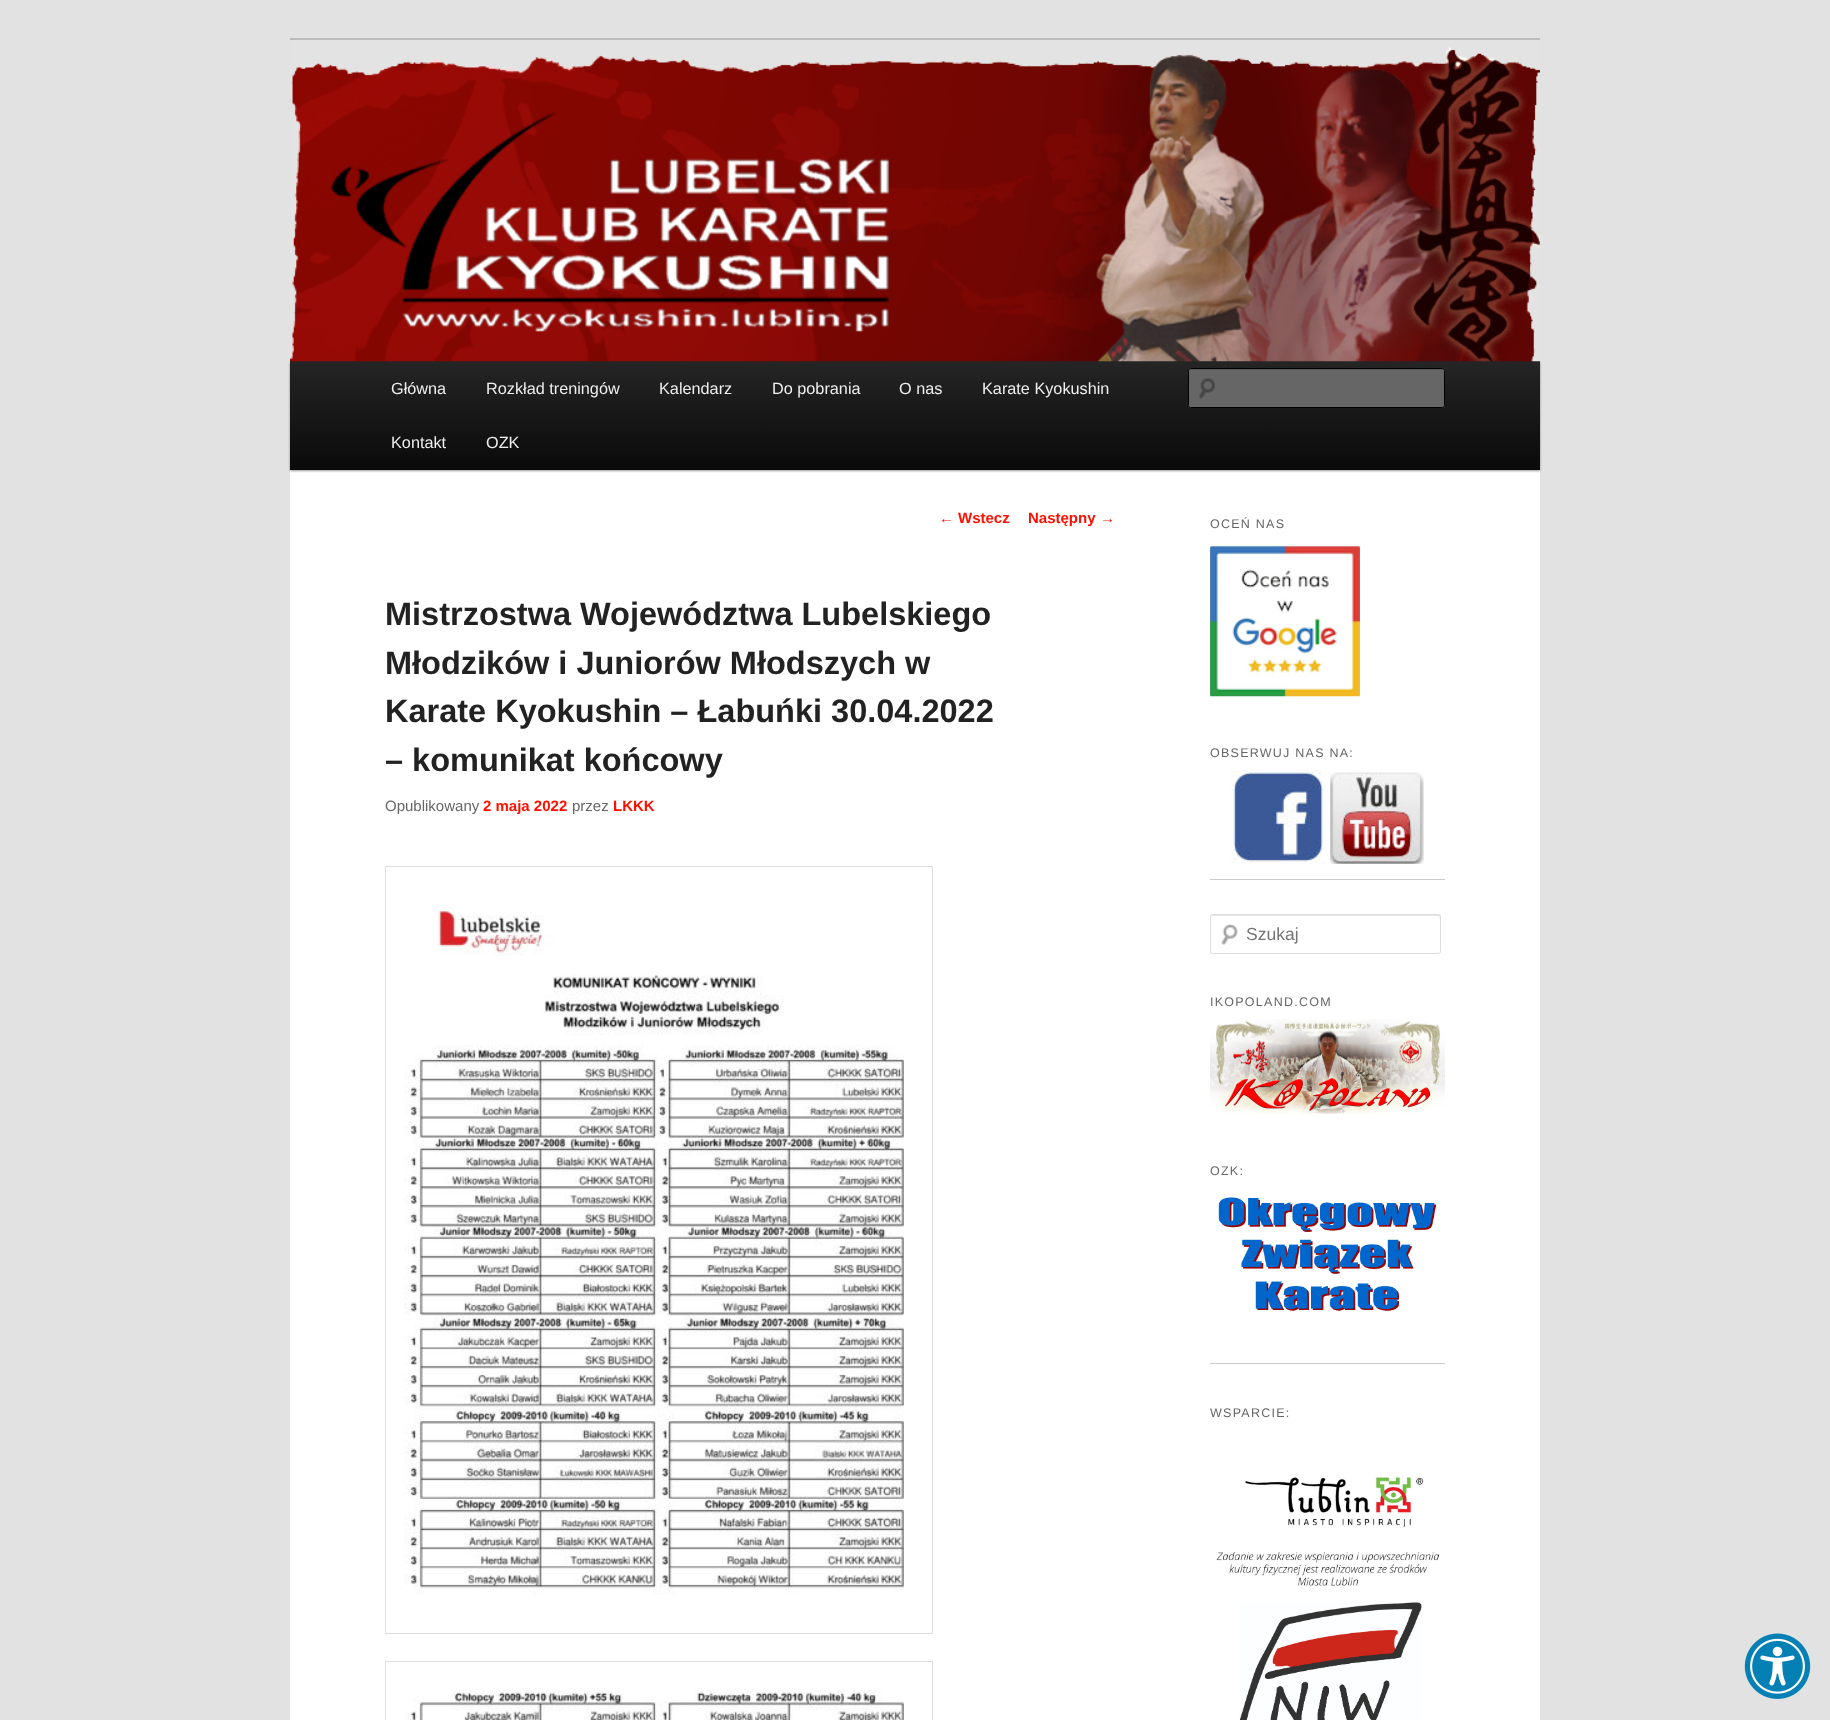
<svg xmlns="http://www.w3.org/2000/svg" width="1830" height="1720">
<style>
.a{font:16.25px Liberation Sans;fill:#eee}
.b{font:15px Liberation Sans;fill:#ff1000}
.c{font:bold 15px Liberation Sans;fill:#ff1000}
.d{font:bold 32.5px Liberation Sans;fill:#222}
.e{font:15px Liberation Sans;fill:#666}
.f{font:12.5px Liberation Sans;letter-spacing:1.25px;fill:#666}
.g{font:17.5px Liberation Sans;fill:#757575}
</style>
<defs>
<linearGradient id="g1" gradientUnits="userSpaceOnUse" x1="915" y1="361" x2="915" y2="470"><stop offset="0" stop-color="#252525"/><stop offset="1" stop-color="#0a0a0a"/></linearGradient>
</defs>
<rect width="100%" height="100%" fill="#e2e2e2"/>
<path fill="#fff" d="M290 43h1250v1677H290z"/>
<path fill="#bbb" d="M290 38h1250v2H290z"/>
<path fill="#00000066" filter="blur(1px)" d="M290 363h1250v108H290z"/>
<path fill="url(#g1)" d="M290 361h1250v109H290z"/>
<image href="1.png" x="290" y="40" width="1250" height="322"/>
<rect fill="#666" x="1188" y="368" width="257" height="40" rx="2.5"/>
<image href="2.png" x="1199" y="378" width="16" height="21"/>
<path fill="#5c5c5c" d="M1190 370h252l2 1v-2h-254c-1 0-1 1-1 2z"/>
<rect fill="none" stroke="#000" x="1188.5" y="368.5" width="256" height="39" rx="2"/>
<path fill="none" stroke="#ddd" d="M385.5 866.5h547v767H385.5z"/>
<image href="3.png" x="404" y="905" width="500" height="690"/>
<path fill="none" stroke="#ddd" d="M385.5 1661.5h547v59H385.5z"/>
<image href="4.png" x="405" y="1690" width="499" height="30"/>
<image href="5.png" x="1210" y="546" width="150" height="151"/>
<image href="6.png" x="1231" y="770" width="94" height="94"/>
<image href="7.png" x="1330" y="772" width="94" height="92"/>
<path fill="#ccc" d="M1210 879h235v1H1210z"/>
<image href="8.png" x="1221" y="924" width="17" height="21"/>
<path fill="#e6e6e6" d="M1212 916h227l1 2v-2c0-1 0-1-1-1h-227c-1 0-1 0-1 1v2z"/>
<rect fill="none" stroke="#ddd" x="1210.5" y="914.5" width="230" height="39" rx="2"/>
<image href="9.png" x="1210" y="1019" width="235" height="95"/>
<image href="10.png" x="1218" y="1197" width="219" height="114"/>
<path fill="#ccc" d="M1210 1363h235v1H1210z"/>
<image href="11.png" x="1216" y="1476" width="224" height="110"/>
<image href="12.png" x="1239" y="1602" width="183" height="118"/>
<circle fill="#fff" cx="1777.5" cy="1666.5" r="28.5"/>
<image href="13.png" x="1744" y="1633" width="67" height="66"/>
<text class="a" x="391" y="394">Główna</text>
<text class="a" x="486" y="394">Rozkład treningów</text>
<text class="a" x="659" y="394">Kalendarz</text>
<text class="a" x="772" y="394">Do pobrania</text>
<text class="a" x="899" y="394">O nas</text>
<text class="a" x="982" y="394">Karate Kyokushin</text>
<text class="a" x="391" y="448">Kontakt</text>
<text class="a" x="486" y="448">OZK</text>
<text class="b" x="939" y="523">←</text>
<text class="c" x="958" y="523">Wstecz</text>
<text class="c" x="1028" y="523">Następny</text>
<text class="b" x="1100" y="523">→</text>
<text class="d" x="385" y="625">Mistrzostwa Województwa Lubelskiego</text>
<text class="d" x="385" y="674">Młodzików i Juniorów Młodszych w</text>
<text class="d" x="385" y="722">Karate Kyokushin – Łabuńki 30.04.2022</text>
<text class="d" x="385" y="771">– komunikat końcowy</text>
<text class="e" x="385" y="811">Opublikowany</text>
<text class="c" x="483" y="811">2 maja 2022</text>
<text class="e" x="572" y="811">przez</text>
<text class="c" x="613" y="811">LKKK</text>
<text class="f" x="1210" y="528">OCEŃ NAS</text>
<text class="f" x="1210" y="757">OBSERWUJ NAS NA:</text>
<text class="g" x="1246" y="940">Szukaj</text>
<text class="f" x="1210" y="1006">IKOPOLAND.COM</text>
<text class="f" x="1210" y="1175">OZK:</text>
<text class="f" x="1210" y="1417">WSPARCIE:</text>
</svg>
